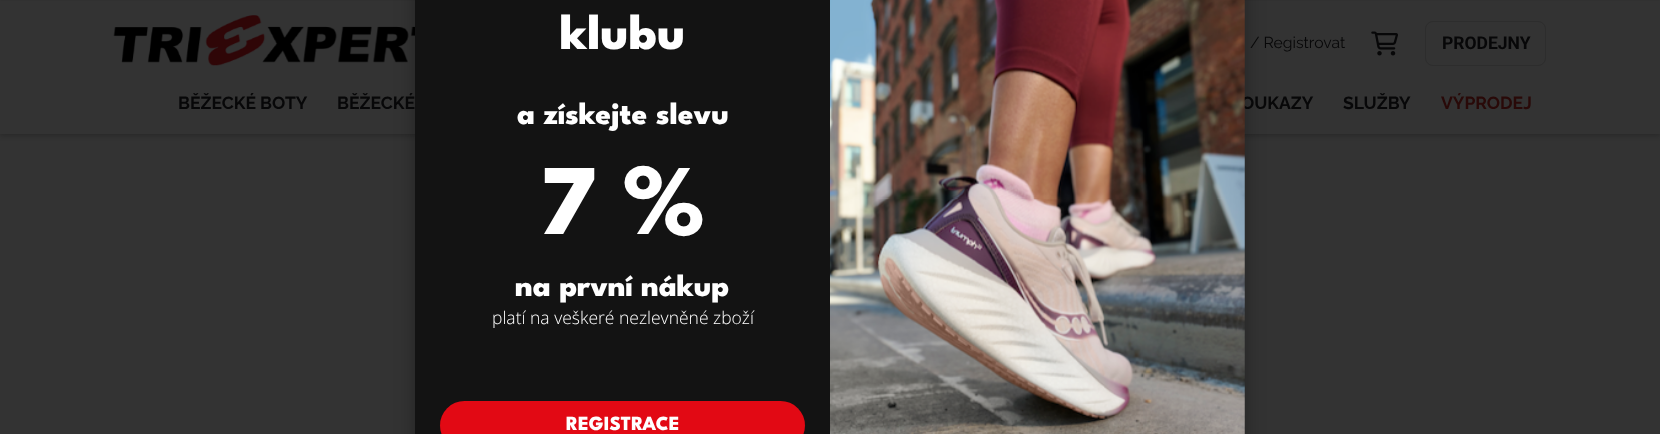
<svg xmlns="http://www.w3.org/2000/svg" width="1660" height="434">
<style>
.a{font:100 50px League Spartan;fill:#fff}
.b{font:100 31.25px League Spartan;fill:#fff}
.c{font:100 100px League Spartan;fill:#fff}
.d{font:300 17.5px Open Sans;fill:#fff}
.e{font:100 20px League Spartan;fill:#fff}
.f{font:15.75px Raleway;fill:#070708}
.g{font:bold 17.5px Roboto;fill:#070708}
.h{font:bold 17.5px Raleway;fill:#070708}
.i{font:bold 17.5px Raleway;fill:#290908}
</style>
<rect width="100%" height="100%" fill="#333"/>
<path fill="#00000033" filter="blur(2.5px)" d="M0 3h1660v133H0z"/>
<path fill="#333" d="M0 1h1660v133H0z"/>
<image href="2.png" x="113" y="15" width="302" height="51"/>
<rect fill="#0000004d" filter="blur(10px)" x="415" y="-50" width="830" height="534" rx="20"/>
<path fill="#131313" d="M415 0h415v434H415z"/>
<rect fill="#e20914" x="440" y="401" width="365" height="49" rx="24.5"/>
<image href="3.png" x="1371" y="31" width="27" height="25"/>
<rect fill="none" stroke="#2d2d2d" x="1425.5" y="21.5" width="120" height="44" rx="7.5"/>
<text class="a" x="560" y="49">klubu</text>
<text class="b" x="517" y="124">a získejte slevu</text>
<text class="c" x="540" y="234">7 %</text>
<text class="b" x="515" y="296">na první nákup</text>
<text class="d" x="492" y="324">platí na veškeré nezlevněné zboží</text>
<text class="e" x="566" y="430">REGISTRACE</text>
<text class="f" x="1250" y="48">/ Registrovat</text>
<text class="g" x="1442" y="49">PRODEJNY</text>
<text class="h" x="178" y="109">BĚŽECKÉ BOTY</text>
<text class="h" x="337" y="109">BĚŽECKÉ</text>
<text class="h" x="1241" y="109">OUKAZY</text>
<image href="1.png" x="830" y="0" width="415" height="434"/>
<text class="h" x="1343" y="109">SLUŽBY</text>
<text class="i" x="1441" y="109">VÝPRODEJ</text>
</svg>
